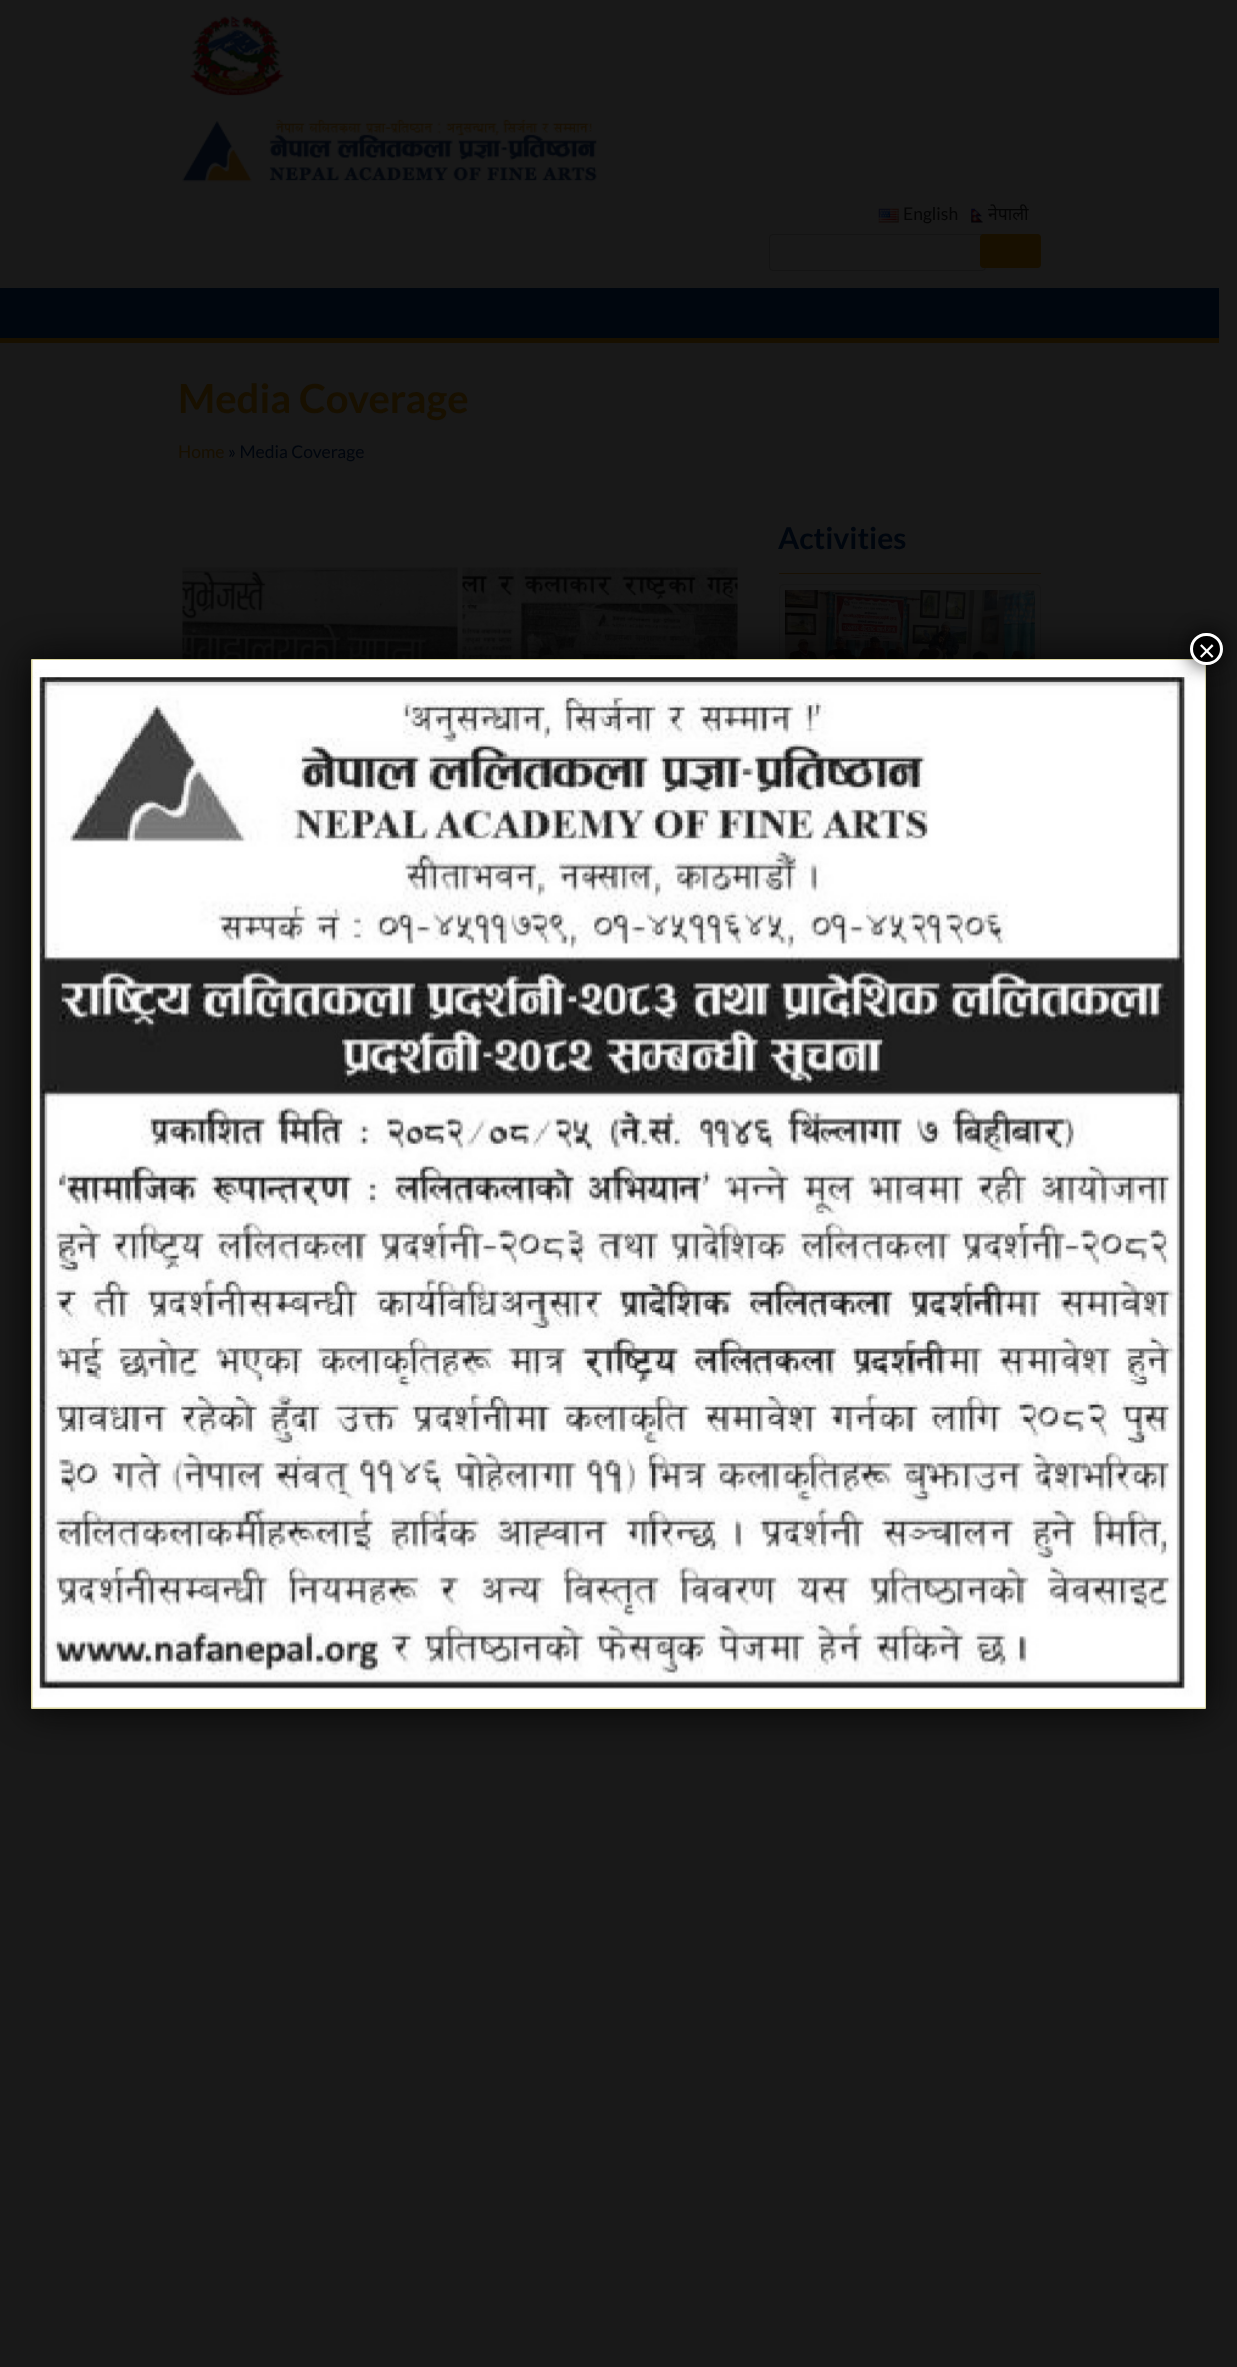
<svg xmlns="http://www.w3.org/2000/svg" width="1237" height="2367">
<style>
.a{font:17.5px Lato;fill:#050505}
.b{font:17.5px Noto Sans;fill:#050505}
.c{font:bold 40px Lato;fill:#181000}
.d{font:17.5px Lato;fill:#181000}
.e{font:17.5px Lato;fill:#00060e}
.f{font:bold 30px Lato;fill:#00060e}
.g{font:30px Liberation Sans;fill:#fff}
</style>
<defs>
<clipPath id="clip1"><path d="M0 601h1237v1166h-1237zm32 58h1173c.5 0 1 .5 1 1v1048c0 .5-.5 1-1 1h-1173c-.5 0-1-.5-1-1v-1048c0-.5 .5-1 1-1z" clip-rule="evenodd"/></clipPath>
</defs>
<rect width="100%" height="100%" fill="#191919"/>
<image href="1.png" x="190" y="16" width="94" height="80"/>
<image href="2.png" x="182" y="119" width="415" height="63"/>
<image href="3.png" x="878" y="208" width="21" height="15"/>
<image href="4.png" x="971" y="208" width="12" height="15"/>
<rect fill="none" stroke="#141414" x="769.5" y="234.5" width="216" height="36" rx="3.5"/>
<rect fill="#181000" x="980" y="234" width="61" height="34" rx="4"/>
<path fill="#00060e" d="M0 288h1219v50H0z"/>
<path fill="#181000" d="M0 338h1219v5H0z"/>
<path fill="#181003" d="M779 573h262v1H779z"/>
<rect fill="none" stroke="#161616" x="779.5" y="584.5" width="261" height="126" rx="4.5"/>
<image href="5.png" x="785" y="590" width="250" height="70"/>
<image href="6.png" x="182" y="567" width="276" height="93"/>
<image href="7.png" x="462" y="567" width="276" height="93"/>
<g clip-path="url(#clip1)">
<rect fill="#020202" filter="blur(19px)" x="31" y="659" width="1175" height="1050" rx="1"/>
</g>
<rect fill="#f9f5b6db" x="31" y="659" width="1175" height="1050" rx="1"/>
<image href="8.png" x="32" y="660" width="1174" height="1048"/>
<rect fill="#020202bf" filter="blur(9.5px)" x="1189" y="631" width="35" height="35" rx="17.5"/>
<rect fill="#000" stroke="#fff" stroke-width="3" x="1191.5" y="634.5" width="30" height="29" rx="14.5"/>
<text class="a" x="903" y="220">English</text>
<text class="b" x="988" y="220">नेपाली</text>
<text class="c" x="178" y="413">Media Coverage</text>
<text class="d" x="178" y="458">Home</text>
<text class="e" x="228" y="458">» Media Coverage</text>
<text class="f" x="778" y="549">Activities</text>
<text class="g" x="1198" y="661">×</text>
</svg>
